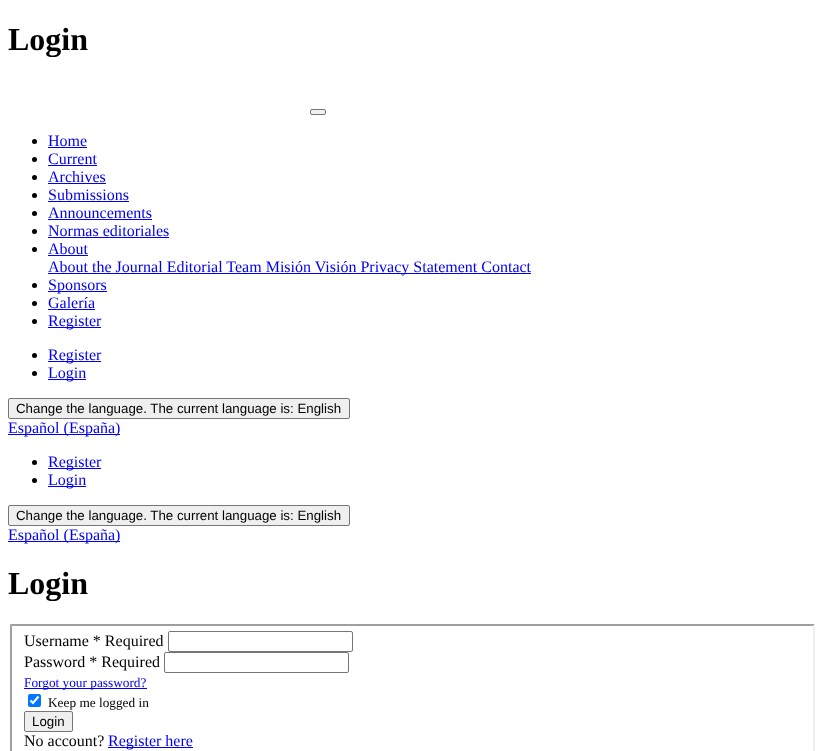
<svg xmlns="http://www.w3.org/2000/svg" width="825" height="751">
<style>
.a{font:bold 32px Liberation Serif;fill:#000}
.b{font:16px Liberation Serif;fill:#00e}
.c{font:13.3px Liberation Sans;fill:#000}
.d{font:16px Liberation Serif;fill:#000}
.e{font:13.3px Liberation Serif;fill:#00e}
.f{font:13.3px Liberation Serif;fill:#000}
</style>
<rect width="100%" height="100%" fill="#fff"/>
<rect fill="#efefef" stroke="#767676" x="310.5" y="109.5" width="15" height="5" rx="1.5"/>
<circle fill="#000" cx="34.5" cy="141.5" r="2.5"/>
<path fill="#00e" d="M48 147h39v1H48z"/>
<circle fill="#000" cx="34.5" cy="159.5" r="2.5"/>
<path fill="#00e" d="M48 165h49v1H48z"/>
<circle fill="#000" cx="34.5" cy="177.5" r="2.5"/>
<path fill="#00e" d="M48 183h58v1H48z"/>
<circle fill="#000" cx="34.5" cy="195.5" r="2.5"/>
<path fill="#00e" d="M48 201h81v1H48z"/>
<circle fill="#000" cx="34.5" cy="213.5" r="2.5"/>
<path fill="#00e" d="M48 219h104v1H48z"/>
<circle fill="#000" cx="34.5" cy="231.5" r="2.5"/>
<path fill="#00e" d="M48 237h121v1H48z"/>
<circle fill="#000" cx="34.5" cy="249.5" r="2.5"/>
<path fill="#00e" d="M48 255h40v1H48z"/>
<path fill="#00e" d="M48 273h483v1H48z"/>
<circle fill="#000" cx="34.5" cy="285.5" r="2.5"/>
<path fill="#00e" d="M48 291h59v1H48z"/>
<circle fill="#000" cx="34.5" cy="303.5" r="2.5"/>
<path fill="#00e" d="M48 309h47v1H48z"/>
<circle fill="#000" cx="34.5" cy="321.5" r="2.5"/>
<path fill="#00e" d="M48 327h53v1H48z"/>
<circle fill="#000" cx="34.5" cy="355.5" r="2.5"/>
<path fill="#00e" d="M48 361h53v1H48z"/>
<circle fill="#000" cx="34.5" cy="373.5" r="2.5"/>
<path fill="#00e" d="M48 379h38v1H48z"/>
<rect fill="#efefef" stroke="#767676" x="8.5" y="398.5" width="341" height="20" rx="1.5"/>
<path fill="#00e" d="M8 434h112v1H8z"/>
<circle fill="#000" cx="34.5" cy="462.5" r="2.5"/>
<path fill="#00e" d="M48 468h53v1H48z"/>
<circle fill="#000" cx="34.5" cy="480.5" r="2.5"/>
<path fill="#00e" d="M48 486h38v1H48z"/>
<rect fill="#efefef" stroke="#767676" x="8.5" y="505.5" width="341" height="20" rx="1.5"/>
<path fill="#00e" d="M8 541h112v1H8z"/>
<path fill="#9f9f9f" d="M10 624h805l-2 2h-801z"/>
<path fill="#efefef" d="M815 624v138l-2-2v-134z"/>
<path fill="#9f9f9f" d="M10 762v-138l2 2v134z"/>
<rect fill="none" stroke="#767676" x="168.5" y="631.5" width="184" height="20" rx="1.5"/>
<rect fill="none" stroke="#767676" x="164.5" y="652.5" width="184" height="20" rx="1.5"/>
<path fill="#00e" d="M24 688h123v1H24z"/>
<rect fill="#0075ff" x="28" y="694" width="13" height="13" rx="2"/>
<path fill="none" stroke="#fff" stroke-width="2.1" d="M30.5 700.5l2.5 2.5l5.5-6.5"/>
<rect fill="#efefef" stroke="#767676" x="24.5" y="711.5" width="48" height="20" rx="1.5"/>
<path fill="#00e" d="M108 747h85v1H108z"/>
<text class="a" x="8" y="50">Login</text>
<text class="b" x="48" y="146">Home</text>
<text class="b" x="48" y="164">Current</text>
<text class="b" x="48" y="182">Archives</text>
<text class="b" x="48" y="200">Submissions</text>
<text class="b" x="48" y="218">Announcements</text>
<text class="b" x="48" y="236">Normas editoriales</text>
<text class="b" x="48" y="254">About</text>
<text class="b" x="48" y="272">About the Journal Editorial Team Misión Visión Privacy Statement Contact</text>
<text class="b" x="48" y="290">Sponsors</text>
<text class="b" x="48" y="308">Galería</text>
<text class="b" x="48" y="326">Register</text>
<text class="b" x="48" y="360">Register</text>
<text class="b" x="48" y="378">Login</text>
<text class="c" x="16" y="413">Change the language. The current language is: English</text>
<text class="b" x="8" y="433">Español (España)</text>
<text class="b" x="48" y="467">Register</text>
<text class="b" x="48" y="485">Login</text>
<text class="c" x="16" y="520">Change the language. The current language is: English</text>
<text class="b" x="8" y="540">Español (España)</text>
<text class="a" x="8" y="594">Login</text>
<text class="d" x="24" y="646">Username * Required</text>
<text class="d" x="24" y="667">Password * Required</text>
<text class="e" x="24" y="687">Forgot your password?</text>
<text class="f" x="48" y="707">Keep me logged in</text>
<text class="c" x="32" y="726">Login</text>
<text class="d" x="24" y="746">No account?</text>
<text class="b" x="108" y="746">Register here</text>
</svg>
